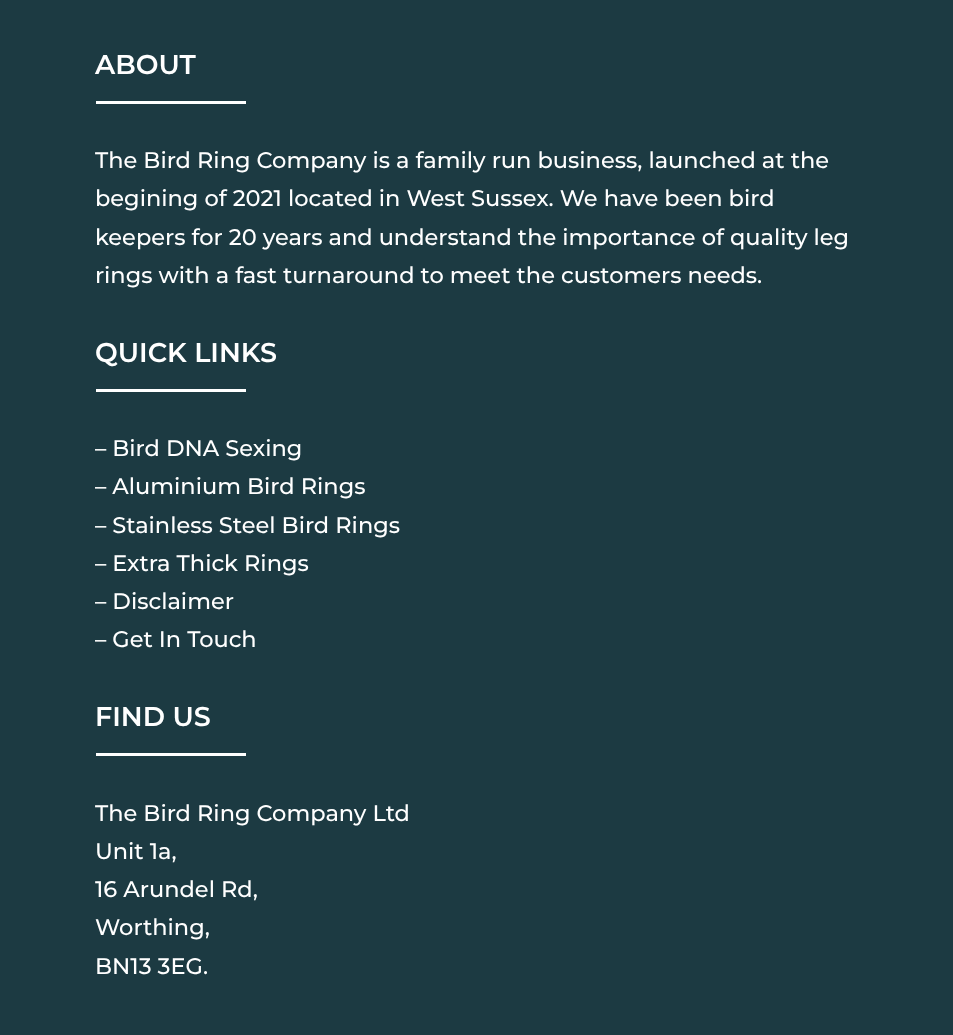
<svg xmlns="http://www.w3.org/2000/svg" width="953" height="1035">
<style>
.a{font:100 27px Montserrat;fill:#fff}
.b{font:100 22.5px 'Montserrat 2';fill:#fff}
</style>
<rect width="100%" height="100%" fill="#1c3a42"/>
<path fill="#fff" d="M96 101h150v3H96z"/>
<path fill="#fff" d="M96 389h150v3H96z"/>
<path fill="#fff" d="M96 753h150v3H96z"/>
<text class="a" x="95" y="74">ABOUT</text>
<text class="b" x="95" y="168">The Bird Ring Company is a family run business, launched at the</text>
<text class="b" x="95" y="206">begining of 2021 located in West Sussex. We have been bird</text>
<text class="b" x="95" y="245">keepers for 20 years and understand the importance of quality leg</text>
<text class="b" x="95" y="283">rings with a fast turnaround to meet the customers needs.</text>
<text class="a" x="95" y="362">QUICK LINKS</text>
<text class="b" x="95" y="456">– Bird DNA Sexing</text>
<text class="b" x="95" y="494">– Aluminium Bird Rings</text>
<text class="b" x="95" y="533">– Stainless Steel Bird Rings</text>
<text class="b" x="95" y="571">– Extra Thick Rings</text>
<text class="b" x="95" y="609">– Disclaimer</text>
<text class="b" x="95" y="647">– Get In Touch</text>
<text class="a" x="95" y="726">FIND US</text>
<text class="b" x="95" y="821">The Bird Ring Company Ltd</text>
<text class="b" x="95" y="859">Unit 1a,</text>
<text class="b" x="95" y="897">16 Arundel Rd,</text>
<text class="b" x="95" y="935">Worthing,</text>
<text class="b" x="95" y="974">BN13 3EG.</text>
</svg>
